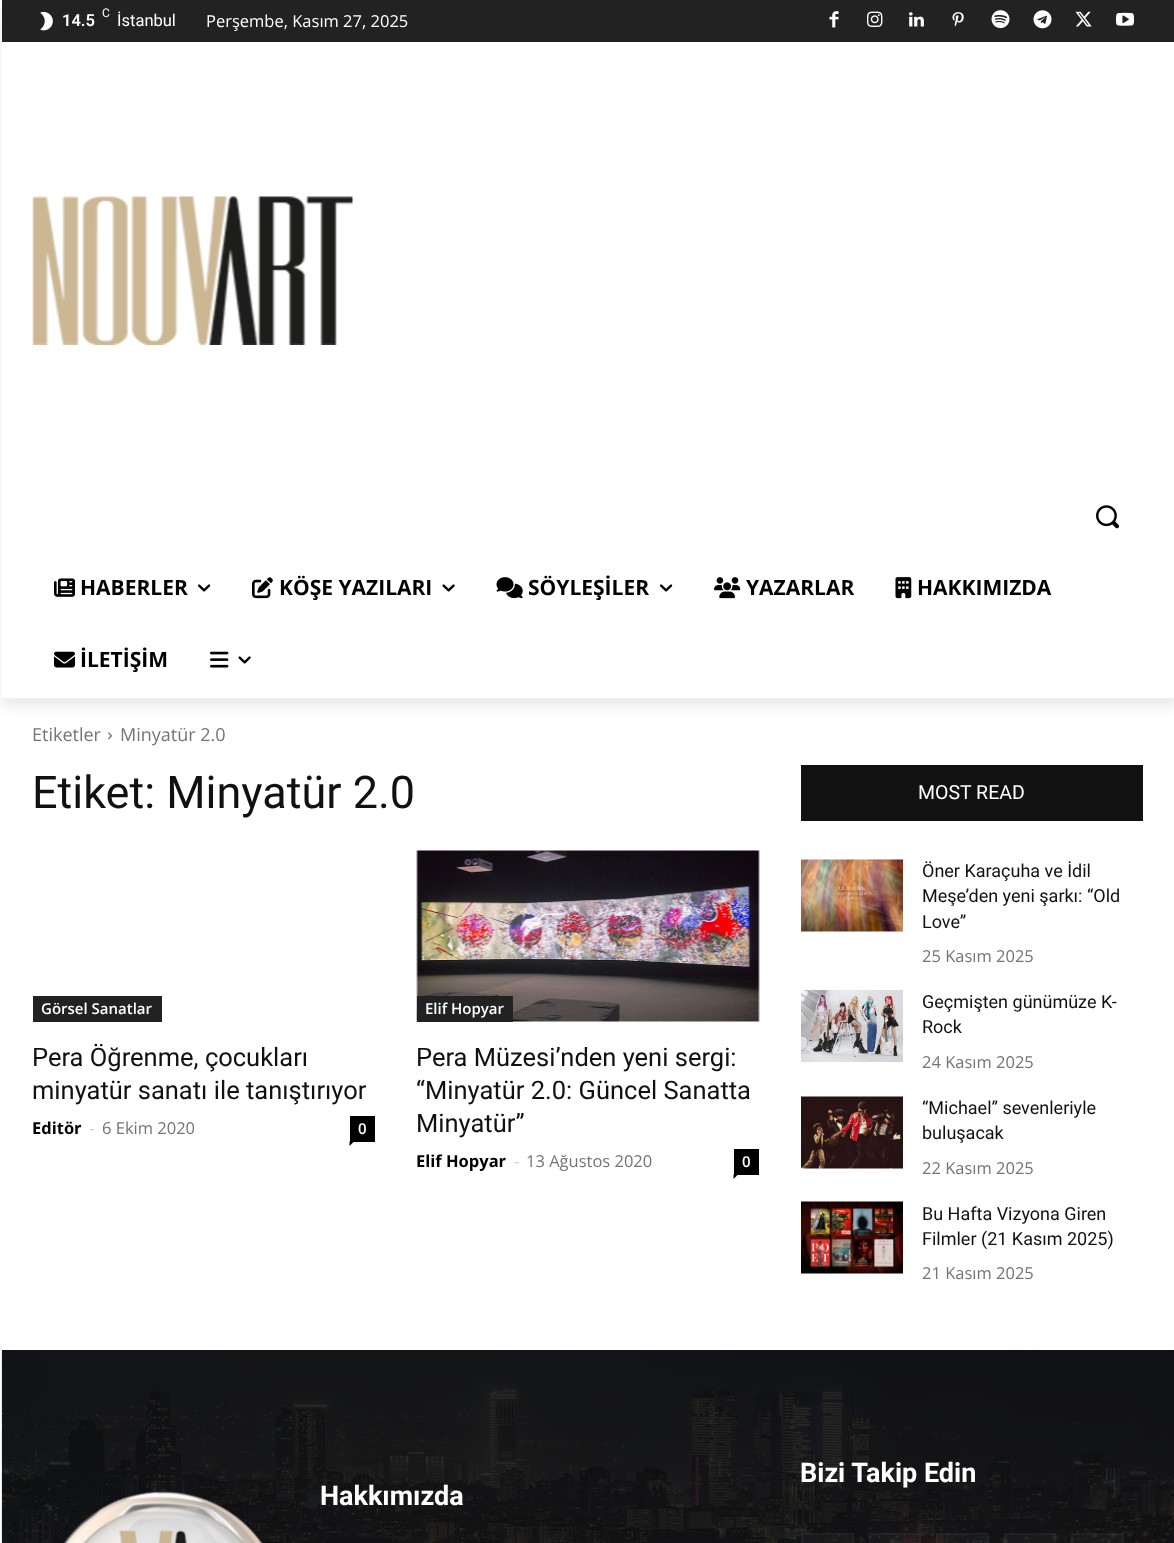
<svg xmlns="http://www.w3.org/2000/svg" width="1174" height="1543">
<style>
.a{font:12px Roboto;fill:#fff}
.b{font:600 16.5px Roboto;fill:#fff}
.c{font:16.5px Roboto;fill:#fff}
.d{font:16.5px Open Sans;fill:#fff}
.e{font:bold 21px Open Sans;fill:#000}
.f{font:18px Open Sans;fill:#747474}
.g{font:45px Roboto;fill:#111}
.h{font:600 15px Open Sans;fill:#fff}
.i{font:25.5px Roboto;fill:#111}
.j{font:bold 16.5px Open Sans;fill:#000}
.k{font:16.5px Open Sans;fill:#ccc}
.l{font:16.5px Open Sans;fill:#747474}
.m{font:19.5px Roboto;fill:#fff}
.n{font:18px Roboto;fill:#111}
.o{font:bold 27px Roboto;fill:#fff}
</style>
<defs>
<clipPath id="clip1"><path d="M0 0h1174v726h-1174zm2 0h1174v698h-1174z" clip-rule="evenodd"/></clipPath>
</defs>
<rect width="100%" height="100%" fill="#fff"/>
<path fill="#222" d="M2 0h1172v42H2z"/>
<image href="1.png" x="40" y="11" width="13" height="20"/>
<image href="2.png" x="829" y="11" width="10" height="17"/>
<image href="3.png" x="867" y="11" width="16" height="16"/>
<image href="4.png" x="909" y="12" width="15" height="15"/>
<image href="5.png" x="952" y="12" width="12" height="15"/>
<image href="6.png" x="991" y="10" width="19" height="19"/>
<image href="7.png" x="1033" y="10" width="19" height="19"/>
<image href="8.png" x="1075" y="11" width="17" height="16"/>
<image href="9.png" x="1116" y="12" width="18" height="14"/>
<image href="10.png" x="32" y="196" width="321" height="149"/>
<g clip-path="url(#clip1)">
<path fill="#00000014" filter="blur(6px)" d="M2 9h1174v698H2z"/>
</g>
<image href="11.png" x="1096" y="505" width="23" height="24"/>
<image href="12.png" x="54" y="578" width="21" height="19"/>
<image href="13.png" x="198" y="584" width="13" height="8"/>
<image href="14.png" x="252" y="577" width="21" height="22"/>
<image href="15.png" x="442" y="584" width="13" height="8"/>
<image href="16.png" x="496" y="577" width="27" height="22"/>
<image href="13.png" x="660" y="584" width="13" height="8"/>
<image href="17.png" x="714" y="577" width="27" height="22"/>
<image href="18.png" x="895" y="577" width="17" height="22"/>
<image href="19.png" x="54" y="651" width="21" height="17"/>
<image href="20.png" x="210" y="651" width="19" height="17"/>
<image href="15.png" x="238" y="656" width="13" height="8"/>
<image href="21.png" x="108" y="732" width="4" height="8"/>
<path fill="#222" d="M33 996h129v26H33z"/>
<path fill="#000" d="M350 1116h25v26H350z"/>
<path fill="#000" d="M349.5 1141.5h4.5l-4.5 4.5z"/>
<image href="22.png" x="416" y="850" width="344" height="172"/>
<path fill="#222" d="M417 996h96v26H417z"/>
<path fill="#000" d="M734 1149h25v26H734z"/>
<path fill="#000" d="M733.5 1174.5h4.5l-4.5 4.5z"/>
<path fill="#111" d="M801 765h342v56H801z"/>
<image href="23.png" x="801" y="859" width="102" height="73"/>
<image href="24.png" x="801" y="990" width="102" height="72"/>
<image href="25.png" x="801" y="1096" width="102" height="73"/>
<image href="26.png" x="801" y="1201" width="102" height="73"/>
<path fill="#111" d="M2 1350h1172v193H2z"/>
<image href="27.png" x="1" y="1350" width="1173" height="193"/>
<path fill="#ffffff08" d="M801 1533h53v10H801z"/>
<path fill="none" stroke="#ffffff08" stroke-width="2" d="M802 1534h51v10H802z"/>
<path fill="#ffffff08" d="M869 1533h52v10H869z"/>
<path fill="none" stroke="#ffffff08" stroke-width="2" d="M870 1534h50v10H870z"/>
<path fill="#ffffff08" d="M936 1533h53v10H936z"/>
<path fill="none" stroke="#ffffff08" stroke-width="2" d="M937 1534h51v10H937z"/>
<path fill="#ffffff08" d="M1004 1533h52v10H1004z"/>
<path fill="none" stroke="#ffffff08" stroke-width="2" d="M1005 1534h50v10H1005z"/>
<path fill="#ffffff08" d="M1071 1533h53v10H1071z"/>
<path fill="none" stroke="#ffffff08" stroke-width="2" d="M1072 1534h51v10H1072z"/>
<image href="28.png" x="63" y="1491" width="200" height="52"/>
<text class="a" x="102" y="17">C</text>
<text class="b" x="62" y="26">14.5</text>
<text class="c" x="117" y="26">İstanbul</text>
<text class="d" x="206" y="27">Perşembe, Kasım 27, 2025</text>
<text class="e" x="80" y="595">HABERLER</text>
<text class="e" x="279" y="595">KÖŞE YAZILARI</text>
<text class="e" x="528" y="595">SÖYLEŞİLER</text>
<text class="e" x="746" y="595">YAZARLAR</text>
<text class="e" x="917" y="595">HAKKIMIZDA</text>
<text class="e" x="80" y="667">İLETİŞİM</text>
<text class="f" x="32" y="741">Etiketler</text>
<text class="f" x="120" y="741">Minyatür 2.0</text>
<text class="g" x="32" y="808">Etiket: Minyatür 2.0</text>
<text class="h" x="41" y="1014">Görsel Sanatlar</text>
<text class="i" x="32" y="1066">Pera Öğrenme, çocukları</text>
<text class="i" x="32" y="1099">minyatür sanatı ile tanıştırıyor</text>
<text class="j" x="32" y="1134">Editör</text>
<text class="k" x="89" y="1134">-</text>
<text class="l" x="102" y="1134">6 Ekim 2020</text>
<text class="h" x="358" y="1134">0</text>
<text class="h" x="425" y="1014">Elif Hopyar</text>
<text class="i" x="416" y="1066">Pera Müzesi’nden yeni sergi:</text>
<text class="i" x="416" y="1099">“Minyatür 2.0: Güncel Sanatta</text>
<text class="i" x="416" y="1132">Minyatür”</text>
<text class="j" x="416" y="1167">Elif Hopyar</text>
<text class="k" x="514" y="1167">-</text>
<text class="l" x="526" y="1167">13 Ağustos 2020</text>
<text class="h" x="742" y="1167">0</text>
<text class="m" x="918" y="799">MOST READ</text>
<text class="n" x="922" y="877">Öner Karaçuha ve İdil</text>
<text class="n" x="922" y="902">Meşe’den yeni şarkı: “Old</text>
<text class="n" x="922" y="928">Love”</text>
<text class="l" x="922" y="962">25 Kasım 2025</text>
<text class="n" x="922" y="1008">Geçmişten günümüze K-</text>
<text class="n" x="922" y="1033">Rock</text>
<text class="l" x="922" y="1068">24 Kasım 2025</text>
<text class="n" x="922" y="1114">“Michael” sevenleriyle</text>
<text class="n" x="922" y="1139">buluşacak</text>
<text class="l" x="922" y="1174">22 Kasım 2025</text>
<text class="n" x="922" y="1220">Bu Hafta Vizyona Giren</text>
<text class="n" x="922" y="1245">Filmler (21 Kasım 2025)</text>
<text class="l" x="922" y="1279">21 Kasım 2025</text>
<text class="o" x="800" y="1482">Bizi Takip Edin</text>
<text class="o" x="320" y="1505">Hakkımızda</text>
</svg>
